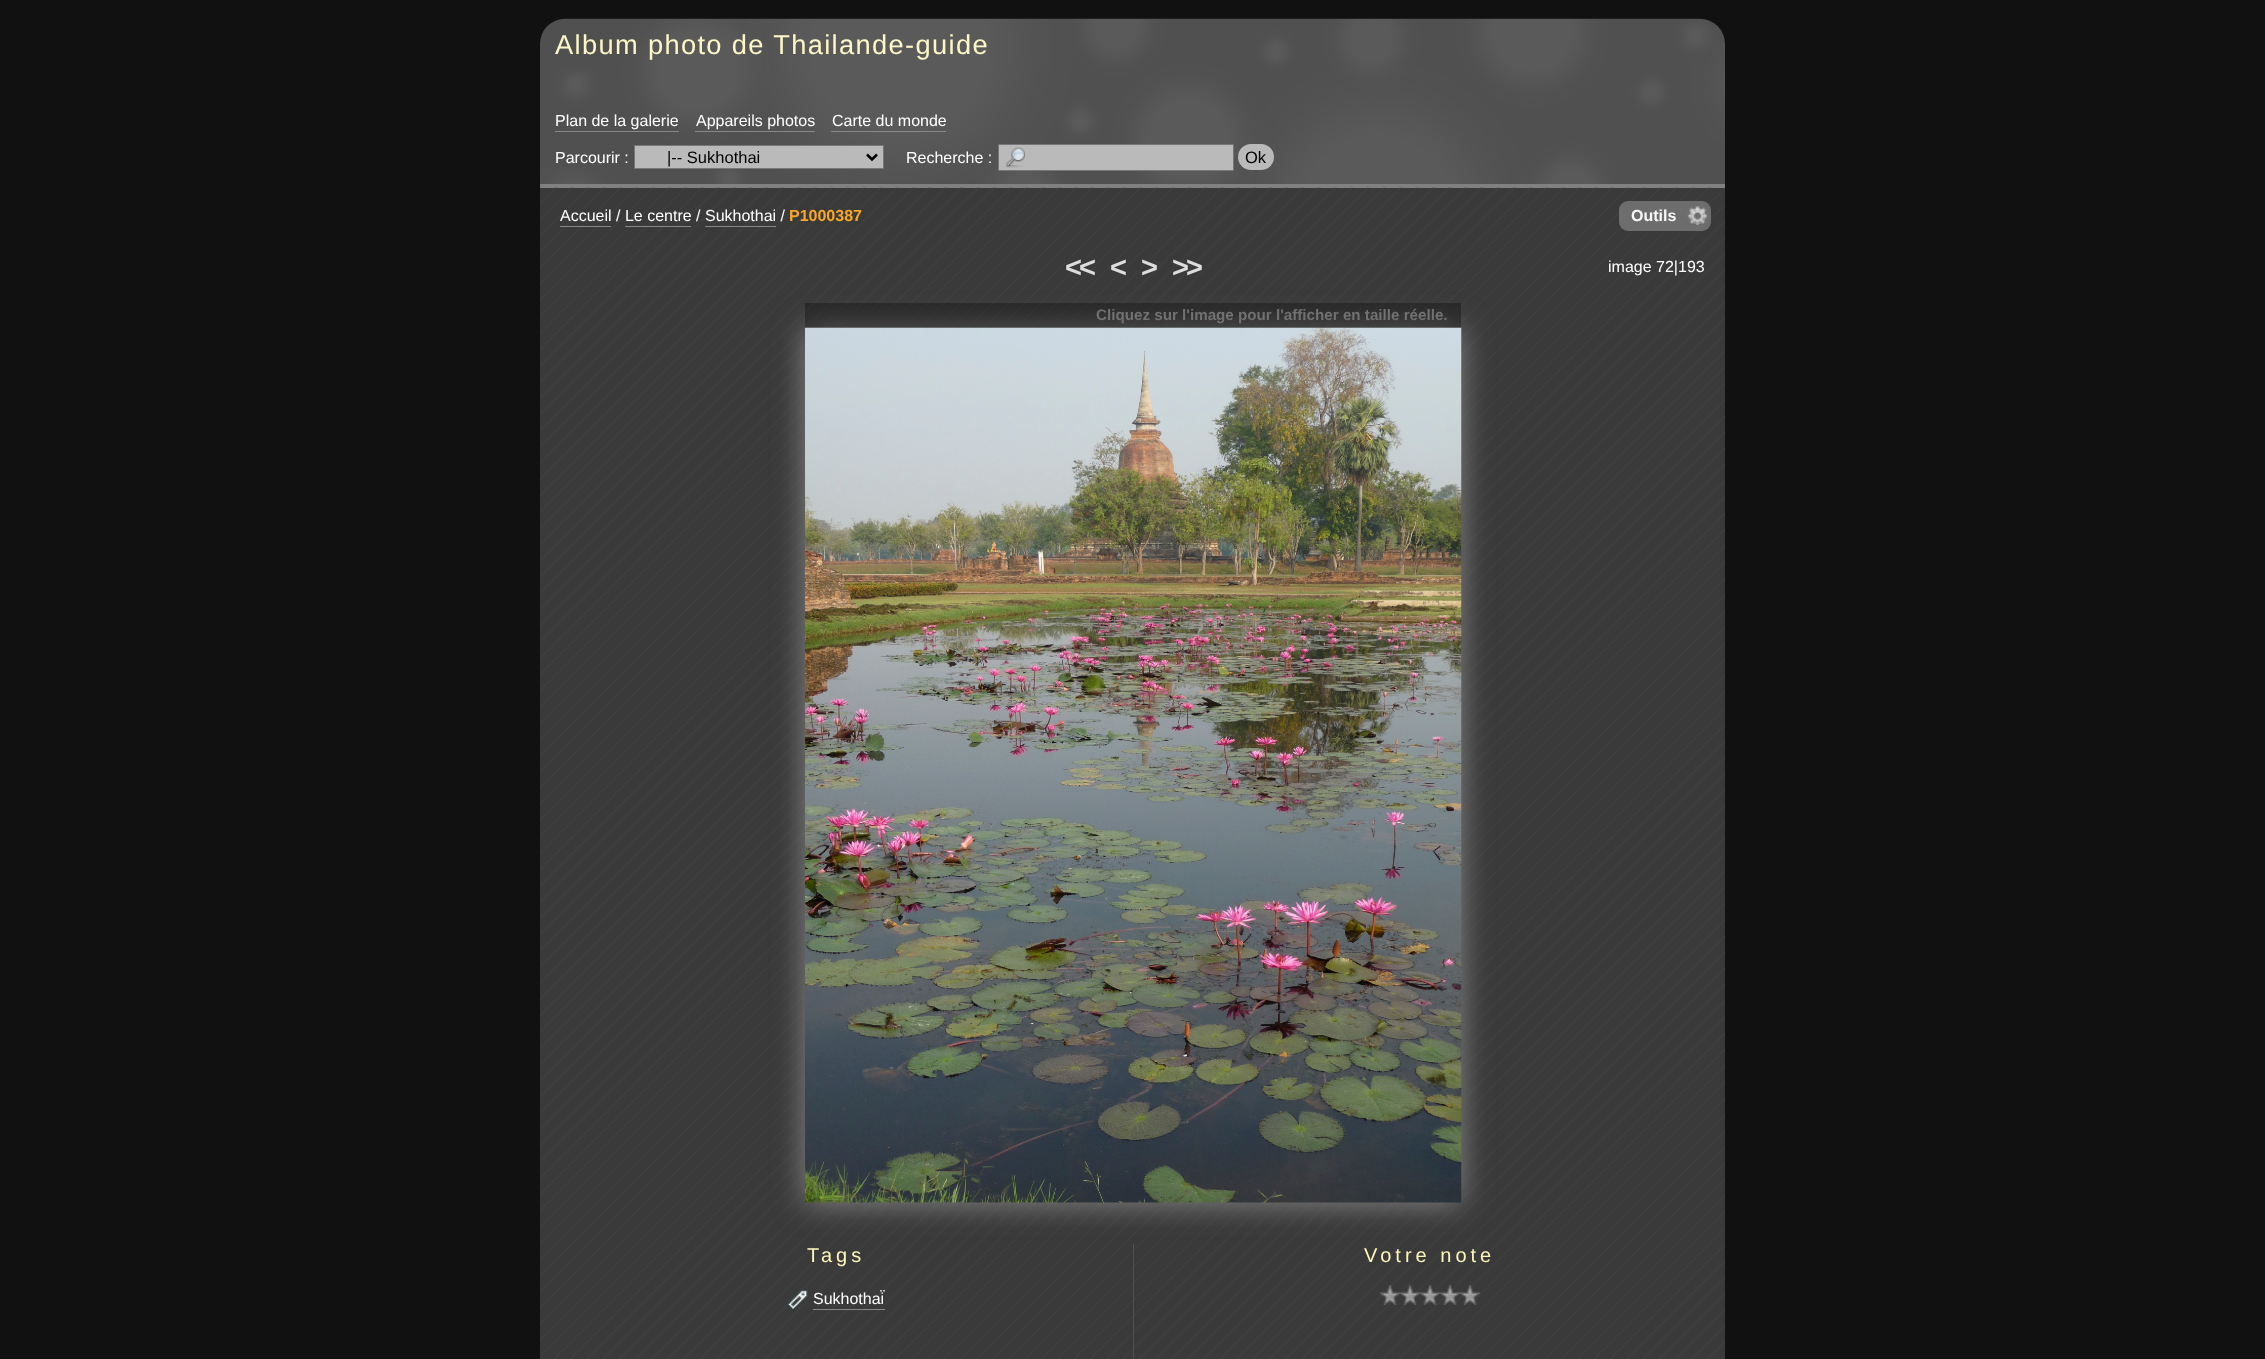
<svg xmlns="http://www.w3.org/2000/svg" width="2265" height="1359">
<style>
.a{font:27.25px Liberation Sans;letter-spacing:1.35px;fill:#fdf7c7}
.b{font:16px Liberation Sans;fill:#fff}
.c{font:16.5px Liberation Sans;fill:#000}
.d{font:bold 16px Liberation Sans;fill:#f8a626}
.e{font:bold 16px Liberation Sans;fill:#f8f8f8}
.f{font:bold 29px Liberation Sans;letter-spacing:-3px;fill:#ddd}
.g{font:bold 15.2px Liberation Sans;fill:#717171}
.h{font:20px Liberation Sans;letter-spacing:4px;fill:#fff6b9}
</style>
<rect width="100%" height="100%" fill="#111"/>
<image href="1.png" x="540" y="18" width="1185" height="166"/>
<path fill="#808080" d="M540 184h1185v4H540z"/>
<path fill="#888" d="M555 131h124v1H555z"/>
<path fill="#888" d="M695 131h120v1H695z"/>
<path fill="#888" d="M831 131h115v1H831z"/>
<path fill="#bababa" stroke="#777" d="M634.5 145.5h249v23H634.5z"/>
<path fill="none" stroke="#000" stroke-width="2.5" d="M867 154.5l5 5l5-5"/>
<path fill="#bababa" d="M999 145h234v25H999z"/>
<image href="2.png" x="1005" y="147" width="20" height="21"/>
<path fill="none" stroke="#777" d="M998.5 144.5h235v26H998.5z"/>
<rect fill="#bababa" x="1238" y="144" width="36" height="26" rx="13"/>
<path fill="#3a3a3a" d="M540 188h1185v1171H540z"/>
<image href="3.png" x="540" y="187" width="1185" height="1172"/>
<path fill="#888" d="M560 226h51v1H560z"/>
<path fill="#888" d="M625 226h66v1H625z"/>
<path fill="#888" d="M705 226h71v1H705z"/>
<rect fill="#707070f2" x="1619" y="201" width="92" height="30" rx="9"/>
<image href="4.png" x="1687" y="206" width="21" height="19"/>
<path fill="#505050" d="M1133 1244h1v115H1133z"/>
<path fill="#888" filter="blur(15.5px)" d="M805 328h656v875H805z"/>
<image href="5.png" x="805" y="327" width="657" height="876"/>
<path fill="#0000004d" d="M805 303h656v25H805z"/>
<image href="6.png" x="787" y="1290" width="21" height="20"/>
<path fill="#888" d="M813 1309h72v1H813z"/>
<image href="7.png" x="1380" y="1285" width="20" height="20"/>
<image href="8.png" x="1400" y="1285" width="20" height="20"/>
<image href="9.png" x="1420" y="1285" width="20" height="20"/>
<image href="10.png" x="1440" y="1285" width="20" height="20"/>
<image href="11.png" x="1460" y="1285" width="20" height="20"/>
<text class="a" x="555" y="54">Album photo de Thailande-guide</text>
<text class="b" x="555" y="126">Plan de la galerie</text>
<text class="b" x="696" y="126">Appareils photos</text>
<text class="b" x="832" y="126">Carte du monde</text>
<text class="b" x="555" y="163">Parcourir :</text>
<text class="c" x="667" y="163">|-- Sukhothai</text>
<text class="b" x="906" y="163">Recherche :</text>
<text class="c" x="1245" y="163">Ok</text>
<text class="b" x="560" y="221">Accueil / Le centre / Sukhothai /</text>
<text class="d" x="789" y="221">P1000387</text>
<text class="e" x="1631" y="221">Outils</text>
<text class="f" x="1065" y="277">&lt;&lt;</text>
<text class="f" x="1110" y="277">&lt;</text>
<text class="f" x="1141" y="277">&gt;</text>
<text class="f" x="1172" y="277">&gt;&gt;</text>
<text class="b" x="1608" y="272">image 72|193</text>
<text class="g" x="1096" y="320">Cliquez sur l'image pour l'afficher en taille réelle.</text>
<text class="h" x="807" y="1262">Tags</text>
<text class="b" x="813" y="1304">Sukhothaï</text>
<text class="h" x="1364" y="1262">Votre note</text>
</svg>
